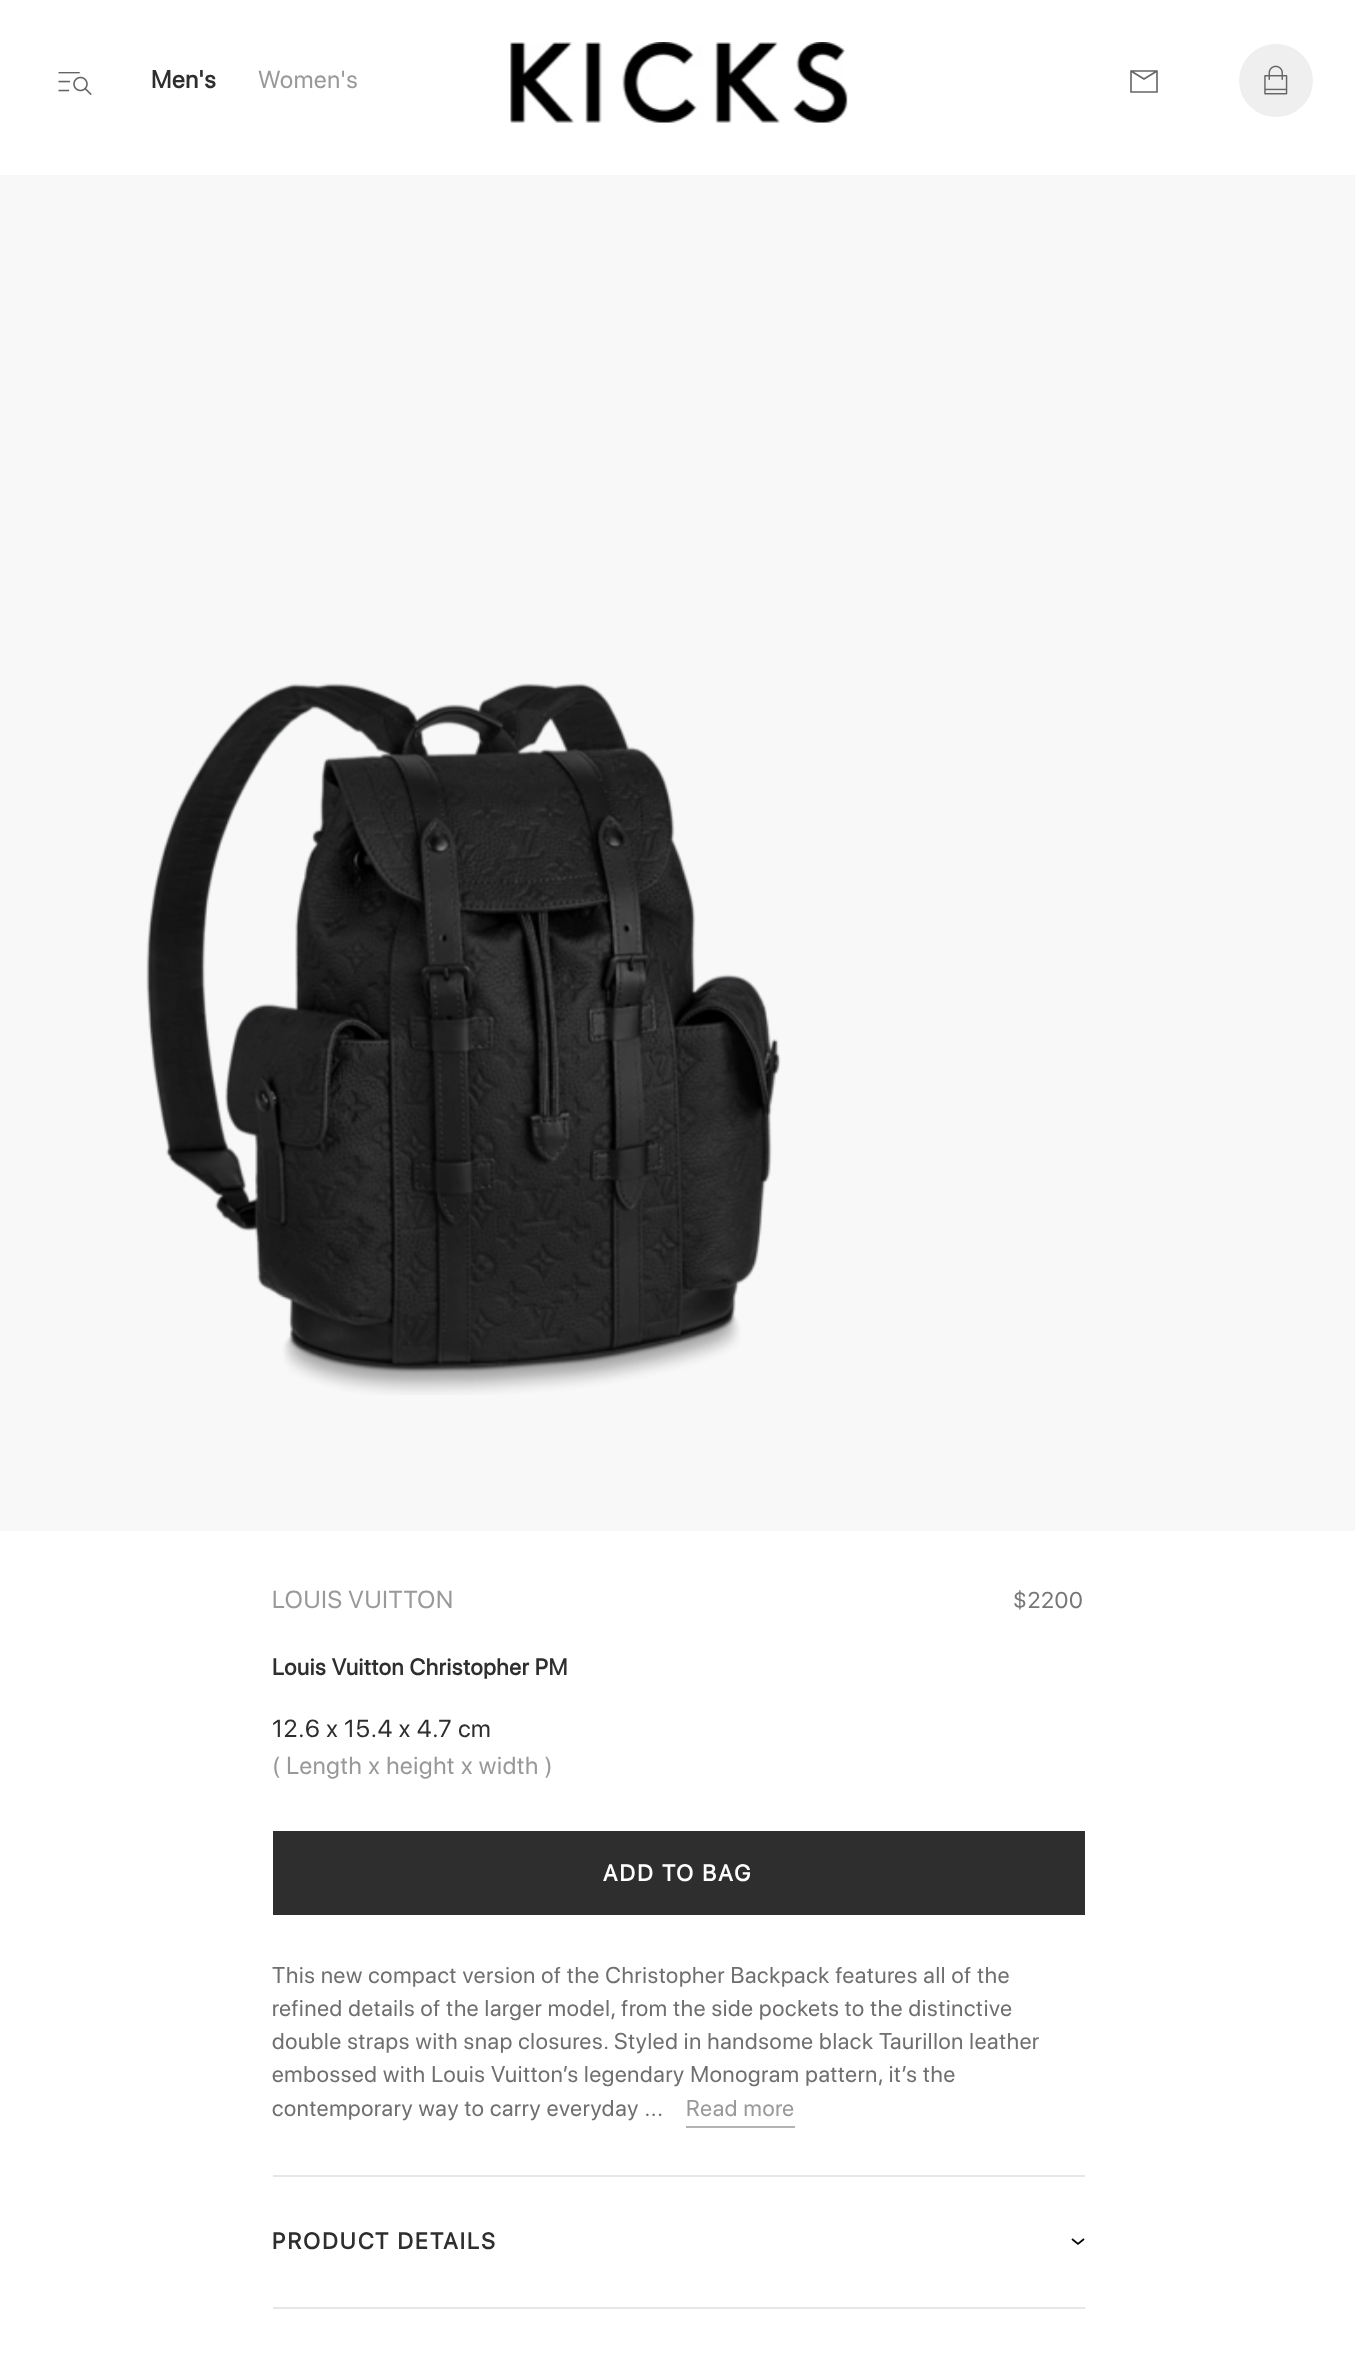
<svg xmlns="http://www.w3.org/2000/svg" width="1355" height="2361">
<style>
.a{font:bold 24.5px SF Pro Display;letter-spacing:0.7px;fill:#2e2e2e}
.b{font:24.5px SF Pro Display;letter-spacing:0.7px;fill:#999}
.c{font:22.75px SF Pro Display;letter-spacing:0.7px;fill:#777}
.d{font:bold 22.75px SF Pro Display;letter-spacing:0.7px;fill:#2e2e2e}
.e{font:24.5px SF Pro Display;letter-spacing:0.7px;fill:#2e2e2e}
.f{font:bold 22.75px SF Pro Display;letter-spacing:2.25px;fill:#fff}
.g{font:22.75px SF Pro Display;letter-spacing:0.7px;fill:#6f6f6f}
.h{font:22.75px SF Pro Display;letter-spacing:0.7px;fill:#999}
.i{font:bold 22.75px SF Pro Display;letter-spacing:2.25px;fill:#2e2e2e}
</style>
<rect width="100%" height="100%" fill="#fff"/>
<image href="1.png" x="58" y="72" width="34" height="24"/>
<image href="2.png" x="510" y="42" width="338" height="81"/>
<path fill="none" stroke="#656565" stroke-width="1.6" stroke-linecap="round" d="M1157 71v21h-26v-21zm0 0l-13 8l-13-8"/>
<rect fill="#efefef" x="1239" y="44" width="74" height="73" rx="36.5"/>
<image href="3.png" x="1264" y="65" width="24" height="30"/>
<path fill="#f8f8f8" d="M0 175h1355v1356H0z"/>
<image href="4.png" x="146" y="683" width="635" height="712"/>
<path fill="#2e2e2e" d="M273 1831h812v84H273z"/>
<path fill="#b3b3b3" d="M686 2126h109v2H686z"/>
<path fill="#e6e6e6" d="M273 2175h812v2H273z"/>
<path fill="none" stroke="#000" stroke-width="1.7" d="M1084 2239l-6 5l-6-5"/>
<path fill="#e6e6e6" d="M273 2307h812v2H273z"/>
<text class="a" x="151" y="88">Men's</text>
<text class="b" x="258" y="88">Women's</text>
<text class="b" x="272" y="1608">LOUIS VUITTON</text>
<text class="c" x="1013" y="1608">$2200</text>
<text class="d" x="272" y="1675">Louis Vuitton Christopher PM</text>
<text class="e" x="272" y="1737">12.6 x 15.4 x 4.7 cm</text>
<text class="b" x="272" y="1774">( Length x height x width )</text>
<text class="f" x="603" y="1881">ADD TO BAG</text>
<text class="g" x="272" y="1983">This new compact version of the Christopher Backpack features all of the</text>
<text class="g" x="272" y="2016">refined details of the larger model, from the side pockets to the distinctive</text>
<text class="g" x="272" y="2049">double straps with snap closures. Styled in handsome black Taurillon leather</text>
<text class="g" x="272" y="2082">embossed with Louis Vuitton’s legendary Monogram pattern, it’s the</text>
<text class="g" x="272" y="2116">contemporary way to carry everyday ...</text>
<text class="h" x="686" y="2116">Read more</text>
<text class="i" x="272" y="2249">PRODUCT DETAILS</text>
</svg>
